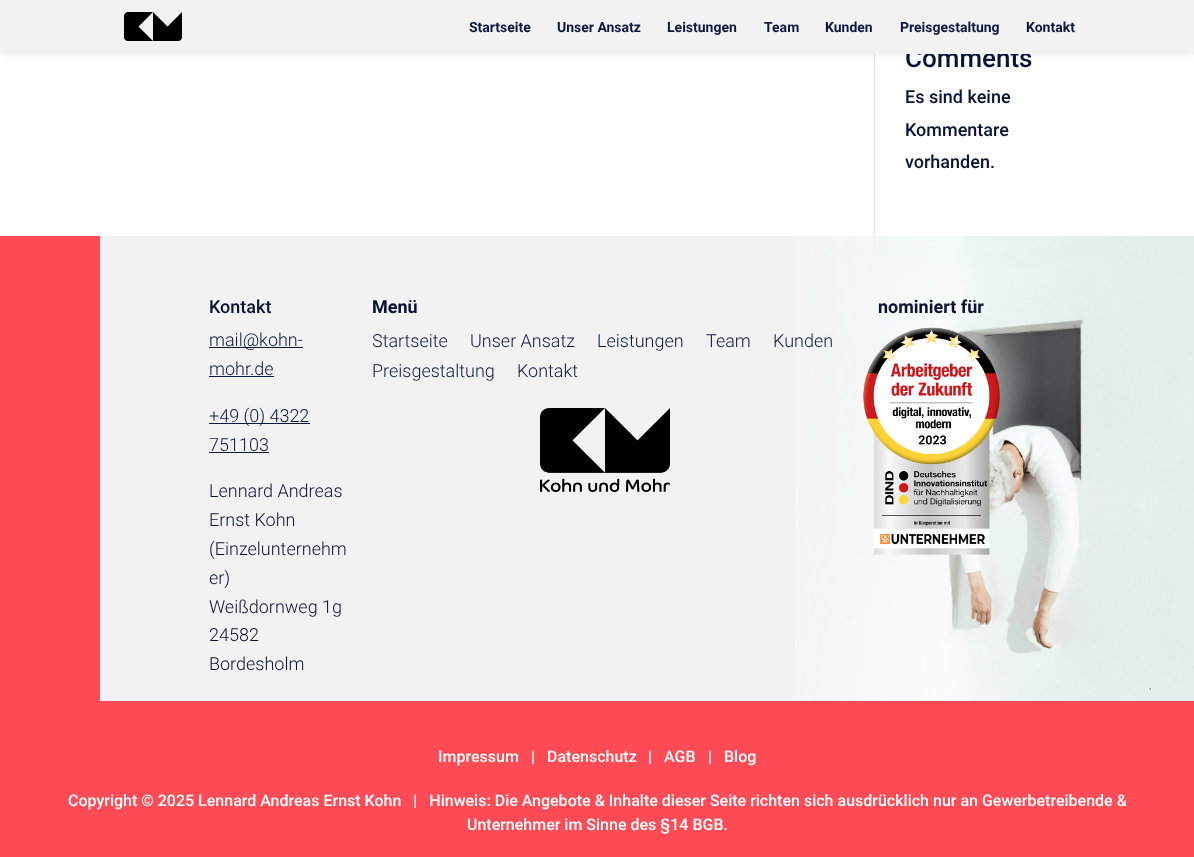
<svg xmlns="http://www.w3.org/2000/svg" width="1194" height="857">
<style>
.a{font:500 26px Roboto;fill:#0a1335}
.b{font:bold 14px Roboto;fill:#0c1842}
.c{font:500 18px Roboto;fill:#0a1335}
.d{font:300 18px Roboto;fill:#0c1842}
.e{font:300 18px Roboto;fill:#0a1335}
.f{font:bold 18px Roboto;fill:#0a1335}
.g{font:500 16px Roboto;fill:#fff}
</style>
<rect width="100%" height="100%" fill="#fff"/>
<path fill="#e2e2e2" d="M874 54h1v182H874z"/>
<path fill="#0000001a" filter="blur(3.5px)" d="M0 0h1194v54H0z"/>
<path fill="#f2f2f2" d="M100 236h695v465H100z"/>
<image href="1.png" x="795" y="236" width="399" height="465"/>
<path fill="#ff4b55" d="M0 236h100v465H0z"/>
<path fill="#0c1842" d="M209 347h94v1H209z"/>
<path fill="#0c1842" d="M209 376h65v1H209z"/>
<path fill="#0c1842" d="M209 423h101v1H209z"/>
<path fill="#0c1842" d="M209 452h60v1H209z"/>
<image href="2.png" x="540" y="408" width="130" height="84"/>
<image href="3.png" x="863" y="327" width="137" height="228"/>
<path fill="#ff4b55" d="M0 701h1194v156H0z"/>
<text class="a" x="905" y="67">Comments</text>
<path fill="#f2f2f2" d="M0 0h1194v54H0z"/>
<text class="b" x="1026" y="32">Kontakt</text>
<text class="b" x="900" y="32">Preisgestaltung</text>
<text class="b" x="825" y="32">Kunden</text>
<text class="b" x="764" y="32">Team</text>
<text class="b" x="667" y="32">Leistungen</text>
<text class="b" x="557" y="32">Unser Ansatz</text>
<text class="b" x="469" y="32">Startseite</text>
<path fill="#000" fill-rule="evenodd" d="M182 12l-14.5 14.5l-14.5-14.5v29h25c2.5 0 4-1.5 4-4zm-29 0h-25c-2 0-4 2-4 4v21c0 2.5 2 4 4 4h25l-14.5-14.5z"/>
<text class="c" x="905" y="103">Es sind keine</text>
<text class="c" x="905" y="136">Kommentare</text>
<text class="c" x="905" y="168">vorhanden.</text>
<text class="c" x="209" y="313">Kontakt</text>
<text class="d" x="209" y="346">mail@kohn-</text>
<text class="d" x="209" y="375">mohr.de</text>
<text class="d" x="209" y="422">+49 (0) 4322</text>
<text class="d" x="209" y="451">751103</text>
<text class="e" x="209" y="497">Lennard Andreas</text>
<text class="e" x="209" y="526">Ernst Kohn</text>
<text class="e" x="209" y="555">(Einzelunternehm</text>
<text class="e" x="209" y="584">er)</text>
<text class="e" x="209" y="613">Weißdornweg 1g</text>
<text class="e" x="209" y="641">24582</text>
<text class="e" x="209" y="670">Bordesholm</text>
<text class="f" x="372" y="313">Menü</text>
<text class="d" x="372" y="347">Startseite</text>
<text class="d" x="470" y="347">Unser Ansatz</text>
<text class="d" x="597" y="347">Leistungen</text>
<text class="d" x="706" y="347">Team</text>
<text class="d" x="773" y="347">Kunden</text>
<text class="d" x="372" y="377">Preisgestaltung</text>
<text class="d" x="517" y="377">Kontakt</text>
<text class="f" x="878" y="313">nominiert für</text>
<text class="g" x="438" y="762">Impressum</text>
<text class="g" x="531" y="762">|</text>
<text class="g" x="547" y="762">Datenschutz</text>
<text class="g" x="648" y="762">|</text>
<text class="g" x="664" y="762">AGB</text>
<text class="g" x="708" y="762">|</text>
<text class="g" x="724" y="762">Blog</text>
<text class="g" xml:space="preserve" x="68" y="806">Copyright © 2025 Lennard Andreas Ernst Kohn   |   Hinweis: Die Angebote &amp; Inhalte dieser Seite richten sich ausdrücklich nur an Gewerbetreibende &amp;</text>
<text class="g" x="467" y="830">Unternehmer im Sinne des §14 BGB.</text>
</svg>
